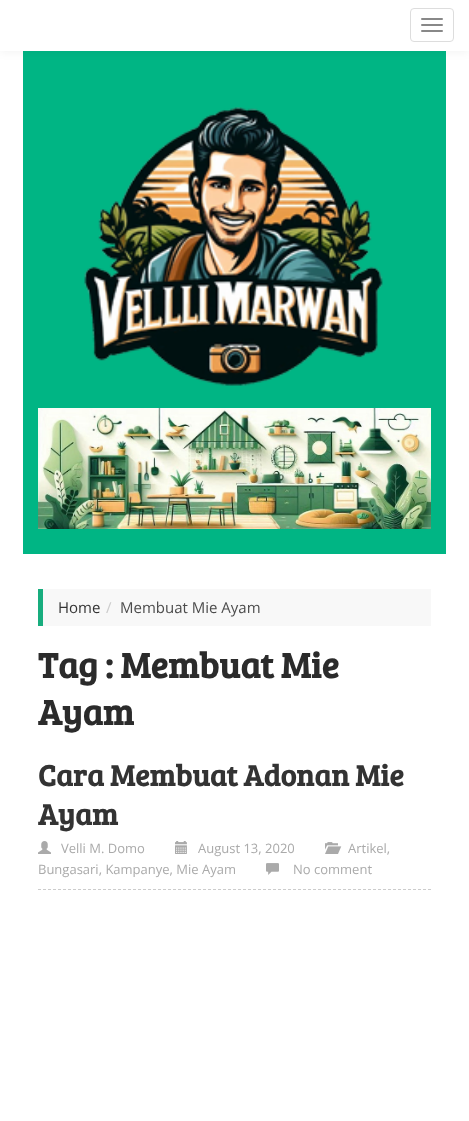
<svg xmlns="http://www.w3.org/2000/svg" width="469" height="1121">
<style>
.a{font:15px Open Sans;fill:#333}
.b{font:15px Open Sans;fill:#ccc}
.c{font:15px Open Sans;fill:#4c4c4c}
.d{font:bold 36px Bree Serif;fill:#2b2b2b}
.e{font:bold 30px Bree Serif;fill:#333}
.f{font:13px Open Sans;fill:#aaa}
</style>
<rect width="100%" height="100%" fill="#fff"/>
<path fill="#00b584" d="M23 51h423v503H23z"/>
<path fill="#0000000d" filter="blur(5px)" d="M0 1h469v51H0z"/>
<path fill="#fff" d="M0 0h469v51H0z"/>
<rect fill="none" stroke="#ddd" x="410.5" y="8.5" width="43" height="33" rx="3.5"/>
<rect fill="#888" x="421" y="18" width="22" height="2" rx="1"/>
<rect fill="#888" x="421" y="24" width="22" height="2" rx="1"/>
<rect fill="#888" x="421" y="30" width="22" height="2" rx="1"/>
<image href="1.png" x="84" y="107" width="299" height="279"/>
<image href="2.png" x="38" y="408" width="393" height="121"/>
<path fill="#f8f8f8" d="M43 589h388v37H43z"/>
<path fill="#18ad7e" d="M38 589h5v37H38z"/>
<path fill="none" stroke="#ccc" stroke-dasharray="3 2" d="M38 889.5h393"/>
<image href="3.png" x="325" y="842" width="17" height="12"/>
<image href="4.png" x="38" y="841" width="13" height="13"/>
<image href="5.png" x="175" y="841" width="12" height="13"/>
<image href="6.png" x="266" y="863" width="13" height="12"/>
<text class="a" x="58" y="613">Home</text>
<text class="b" x="106" y="613">/</text>
<text class="c" x="120" y="613">Membuat Mie Ayam</text>
<text class="d" x="38" y="678">Tag : Membuat Mie</text>
<text class="d" x="38" y="725">Ayam</text>
<text class="e" x="38" y="786">Cara Membuat Adonan Mie</text>
<text class="e" x="38" y="825">Ayam</text>
<text class="f" x="348" y="853">Artikel,</text>
<text class="f" x="38" y="874">Bungasari, Kampanye, Mie Ayam</text>
<text class="f" x="61" y="853">Velli M. Domo</text>
<text class="f" x="198" y="853">August 13, 2020</text>
<text class="f" x="293" y="874">No comment</text>
</svg>
